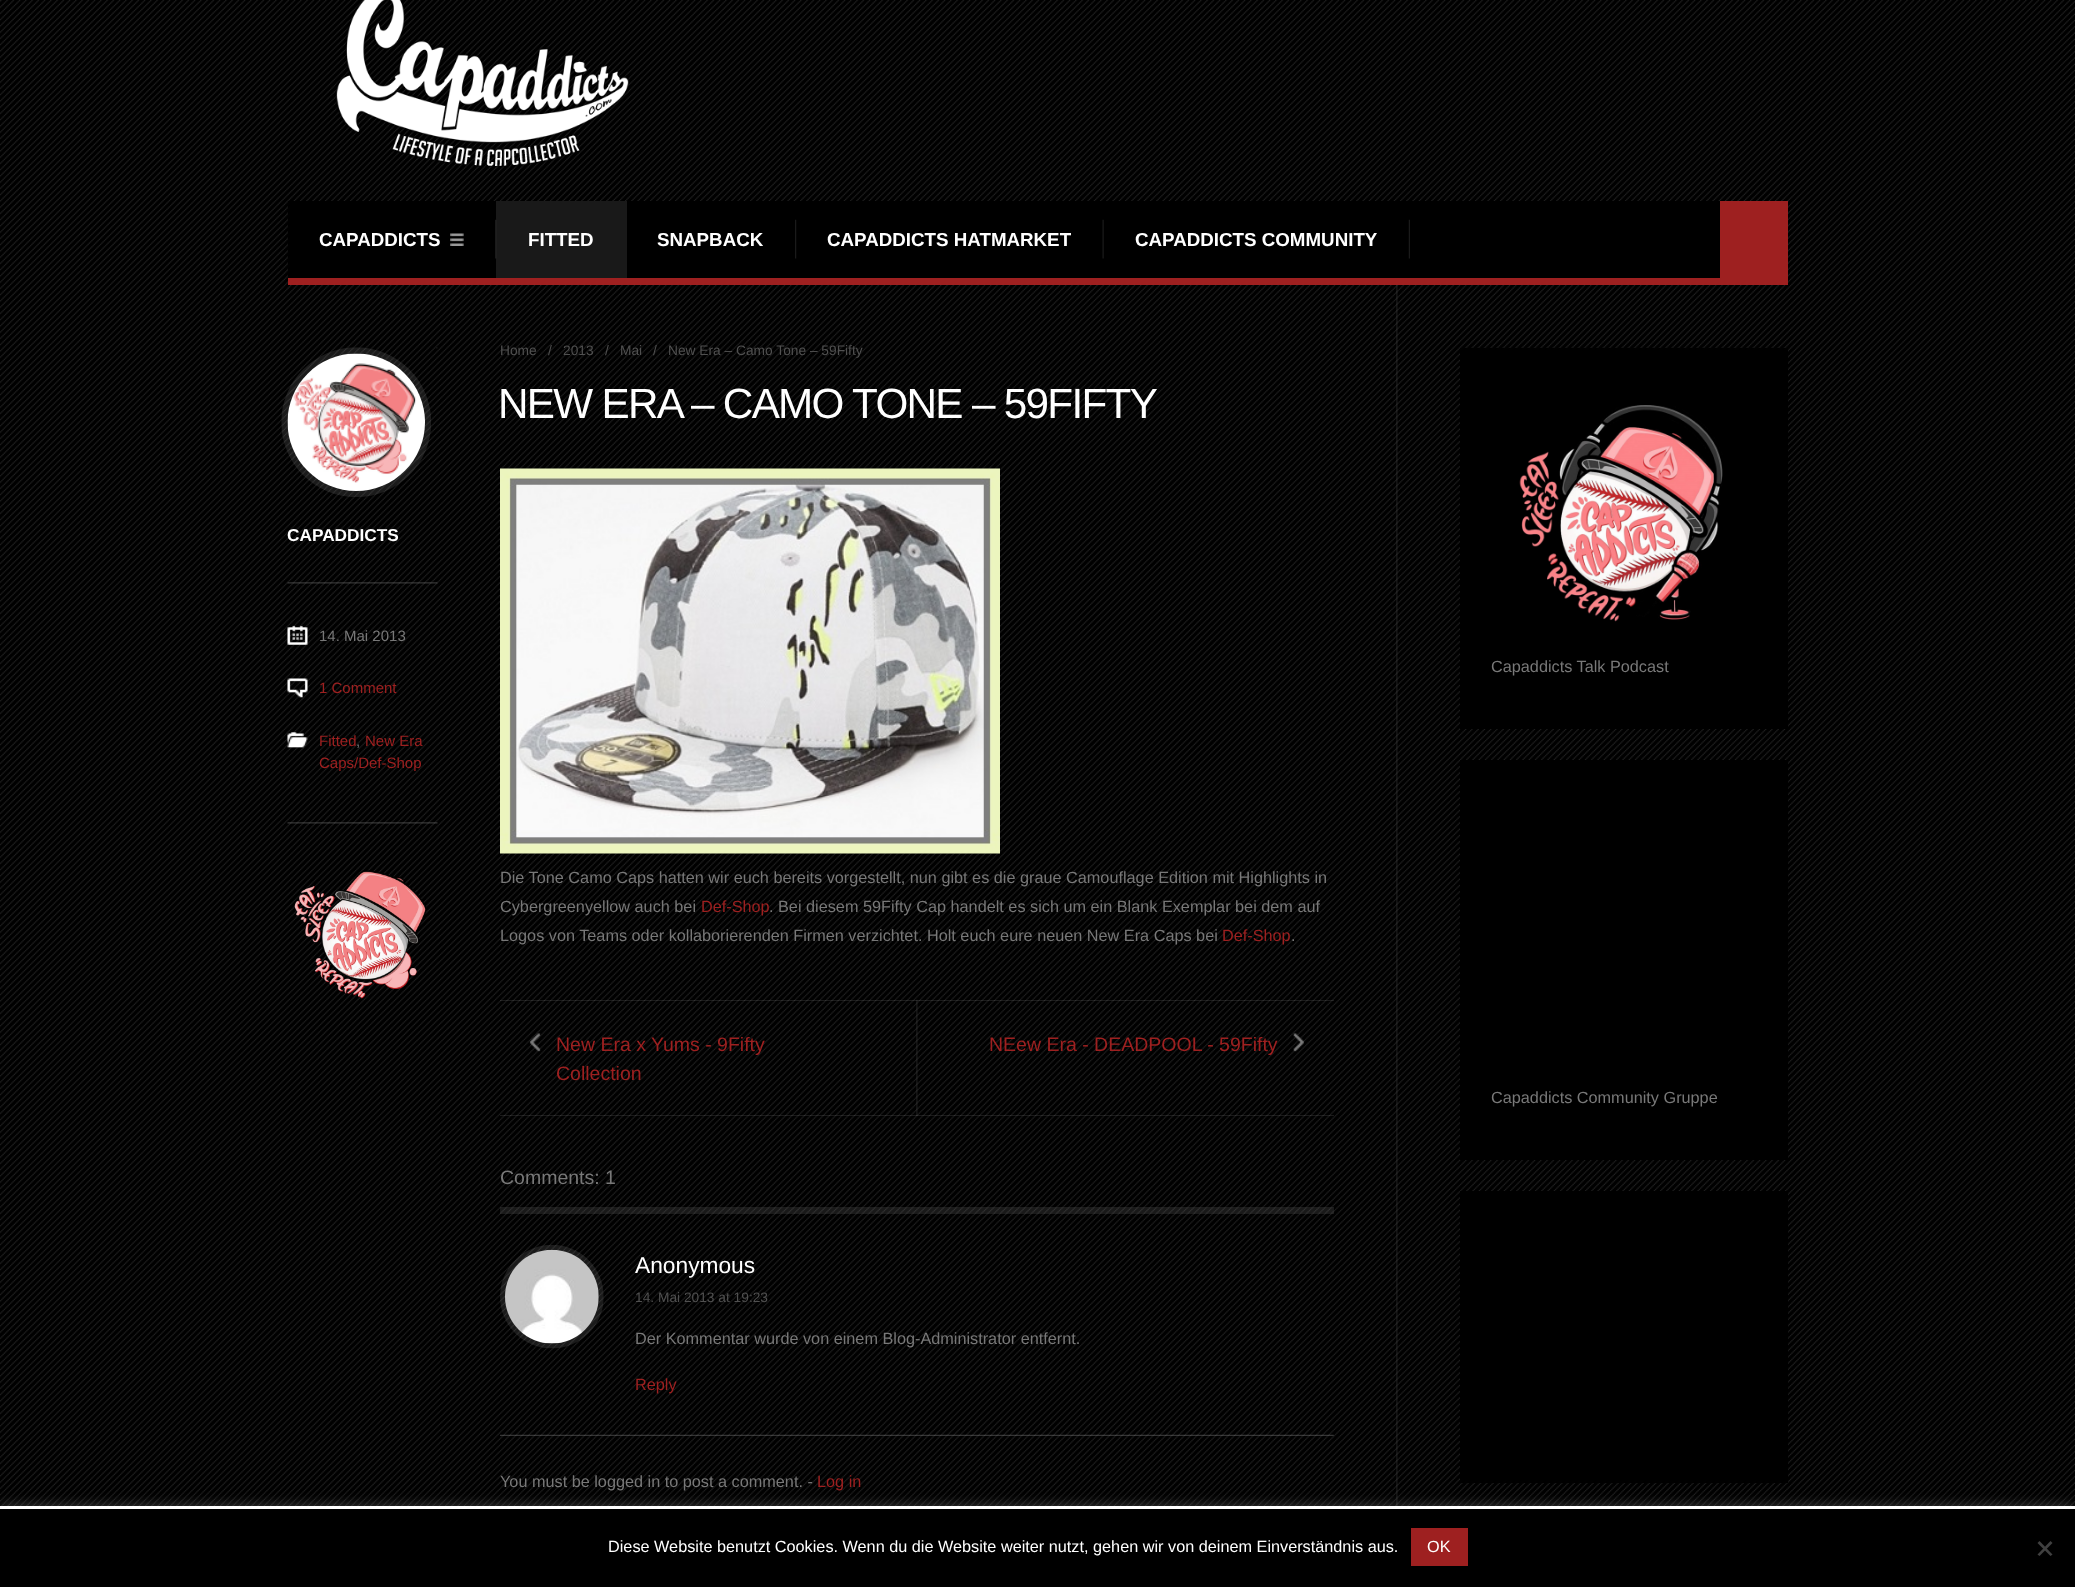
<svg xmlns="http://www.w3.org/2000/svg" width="2075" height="1587">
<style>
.a{font:bold 18.75px Liberation Sans;fill:#fff}
.b{font:bold 17.25px Liberation Sans;fill:#fff}
.c{font:15px Liberation Sans;fill:#787878}
.d{font:15px Liberation Sans;fill:#9e2020}
.e{font:13.75px Liberation Sans;fill:#505050}
.f{font:42.25px Liberation Sans;letter-spacing:-1.7px;fill:#fff}
.g{font:16.25px Liberation Sans;fill:#787878}
.h{font:16.25px Liberation Sans;fill:#9e2020}
.i{font:19.5px Liberation Sans;fill:#9e2020}
.j{font:19.5px Liberation Sans;fill:#787878}
.k{font:22.75px Liberation Sans;fill:#fff}
.l{font:16.25px Liberation Sans;fill:#fff}
</style>
<rect width="100%" height="100%" fill="#000"/>
<image href="1.png" x="0" y="0" width="2075" height="1506"/>
<image href="2.png" x="335" y="0" width="295" height="167"/>
<path fill="#000" d="M288 201h1432v77H288z"/>
<path fill="#9e2020" d="M288 278h1500v7H288z"/>
<image href="3.png" x="495" y="219" width="2" height="40"/>
<image href="4.png" x="450" y="233" width="14" height="13"/>
<path fill="#aaaaaa26" d="M496 201h131v77H496z"/>
<image href="3.png" x="795" y="219" width="2" height="40"/>
<image href="5.png" x="1102" y="219" width="2" height="40"/>
<image href="6.png" x="1408" y="219" width="2" height="40"/>
<path fill="#9e2020" d="M1720 201h68v77H1720z"/>
<image href="7.png" x="1396" y="285" width="2" height="1221"/>
<image href="8.png" x="436" y="347" width="2" height="2"/>
<image href="9.png" x="287" y="582" width="151" height="2"/>
<image href="10.png" x="281" y="347" width="150" height="150"/>
<image href="11.png" x="287" y="353" width="138" height="138"/>
<image href="12.png" x="287" y="822" width="151" height="2"/>
<image href="13.png" x="287" y="625" width="21" height="20"/>
<image href="14.png" x="287" y="678" width="21" height="20"/>
<image href="15.png" x="287" y="732" width="21" height="16"/>
<image href="16.png" x="294" y="870" width="132" height="129"/>
<image href="17.png" x="500" y="468" width="500" height="386"/>
<image href="18.png" x="916" y="999" width="2" height="117"/>
<path fill="#ffffff1a" d="M500 1115h834v1H500z"/>
<path fill="#ffffff1a" d="M500 1000h834v1H500z"/>
<image href="19.png" x="529" y="1033" width="12" height="19"/>
<image href="20.png" x="1293" y="1033" width="11" height="19"/>
<path fill="#aaaaaa26" d="M500 1207h834v7H500z"/>
<image href="21.png" x="500" y="1434" width="834" height="2"/>
<image href="22.png" x="500" y="1245" width="104" height="104"/>
<image href="23.png" x="505" y="1249" width="94" height="95"/>
<path fill="#000" d="M1460 348h328v381H1460z"/>
<image href="24.png" x="1519" y="405" width="204" height="217"/>
<path fill="#000" d="M1460 760h328v400H1460z"/>
<path fill="#000" d="M1460 1191h328v292H1460z"/>
<path fill="#acabab4d" filter="blur(6px)" d="M0 1505h2075v81H0z"/>
<path fill="#fff" d="M0 1506h2075v3H0z"/>
<path fill="#000" d="M0 1509h2075v78H0z"/>
<path fill="#9e2020" d="M1411 1528h57v38H1411z"/>
<path fill="#404040" d="M2050.5 1541l2 2l-13 13l-2-1.5z"/>
<path fill="#404040" d="M2037.5 1543l2-2l13 13.5l-2 1.5z"/>
<text class="a" x="319" y="246">CAPADDICTS</text>
<text class="a" x="528" y="246">FITTED</text>
<text class="a" x="657" y="246">SNAPBACK</text>
<text class="a" x="827" y="246">CAPADDICTS HATMARKET</text>
<text class="a" x="1135" y="246">CAPADDICTS COMMUNITY</text>
<text class="b" x="287" y="541">CAPADDICTS</text>
<text class="c" x="319" y="641">14. Mai 2013</text>
<text class="d" x="319" y="693">1 Comment</text>
<text class="d" x="319" y="746">Fitted</text>
<text class="c" x="356" y="746">,</text>
<text class="d" x="365" y="746">New Era</text>
<text class="d" x="319" y="768">Caps/Def-Shop</text>
<text class="e" x="500" y="355">Home</text>
<text class="e" x="548" y="355">/</text>
<text class="e" x="563" y="355">2013</text>
<text class="e" x="605" y="355">/</text>
<text class="e" x="620" y="355">Mai</text>
<text class="e" x="653" y="355">/</text>
<text class="e" x="668" y="355">New Era – Camo Tone – 59Fifty</text>
<text class="f" x="498" y="418">NEW ERA – CAMO TONE – 59FIFTY</text>
<text class="g" x="500" y="883">Die Tone Camo Caps hatten wir euch bereits vorgestellt, nun gibt es die graue Camouflage Edition mit Highlights in</text>
<text class="g" x="500" y="912">Cybergreenyellow auch bei</text>
<text class="h" x="701" y="912">Def-Shop</text>
<text class="g" x="769" y="912">. Bei diesem 59Fifty Cap handelt es sich um ein Blank Exemplar bei dem auf</text>
<text class="g" x="500" y="941">Logos von Teams oder kollaborierenden Firmen verzichtet. Holt euch eure neuen New Era Caps bei</text>
<text class="h" x="1222" y="941">Def-Shop</text>
<text class="g" x="1291" y="941">.</text>
<text class="i" x="556" y="1051">New Era x Yums - 9Fifty</text>
<text class="i" x="556" y="1080">Collection</text>
<text class="i" x="989" y="1051">NEew Era - DEADPOOL - 59Fifty</text>
<text class="j" x="500" y="1184">Comments: 1</text>
<text class="k" x="635" y="1273">Anonymous</text>
<text class="e" x="635" y="1302">14. Mai 2013 at 19:23</text>
<text class="g" x="635" y="1344">Der Kommentar wurde von einem Blog-Administrator entfernt.</text>
<text class="h" x="635" y="1390">Reply</text>
<text class="g" x="500" y="1487">You must be logged in to post a comment. -</text>
<text class="h" x="817" y="1487">Log in</text>
<text class="g" x="1491" y="672">Capaddicts Talk Podcast</text>
<text class="g" x="1491" y="1103">Capaddicts Community Gruppe</text>
<text class="l" x="608" y="1552">Diese Website benutzt Cookies. Wenn du die Website weiter nutzt, gehen wir von deinem Einverständnis aus.</text>
<text class="l" x="1427" y="1552">OK</text>
</svg>
